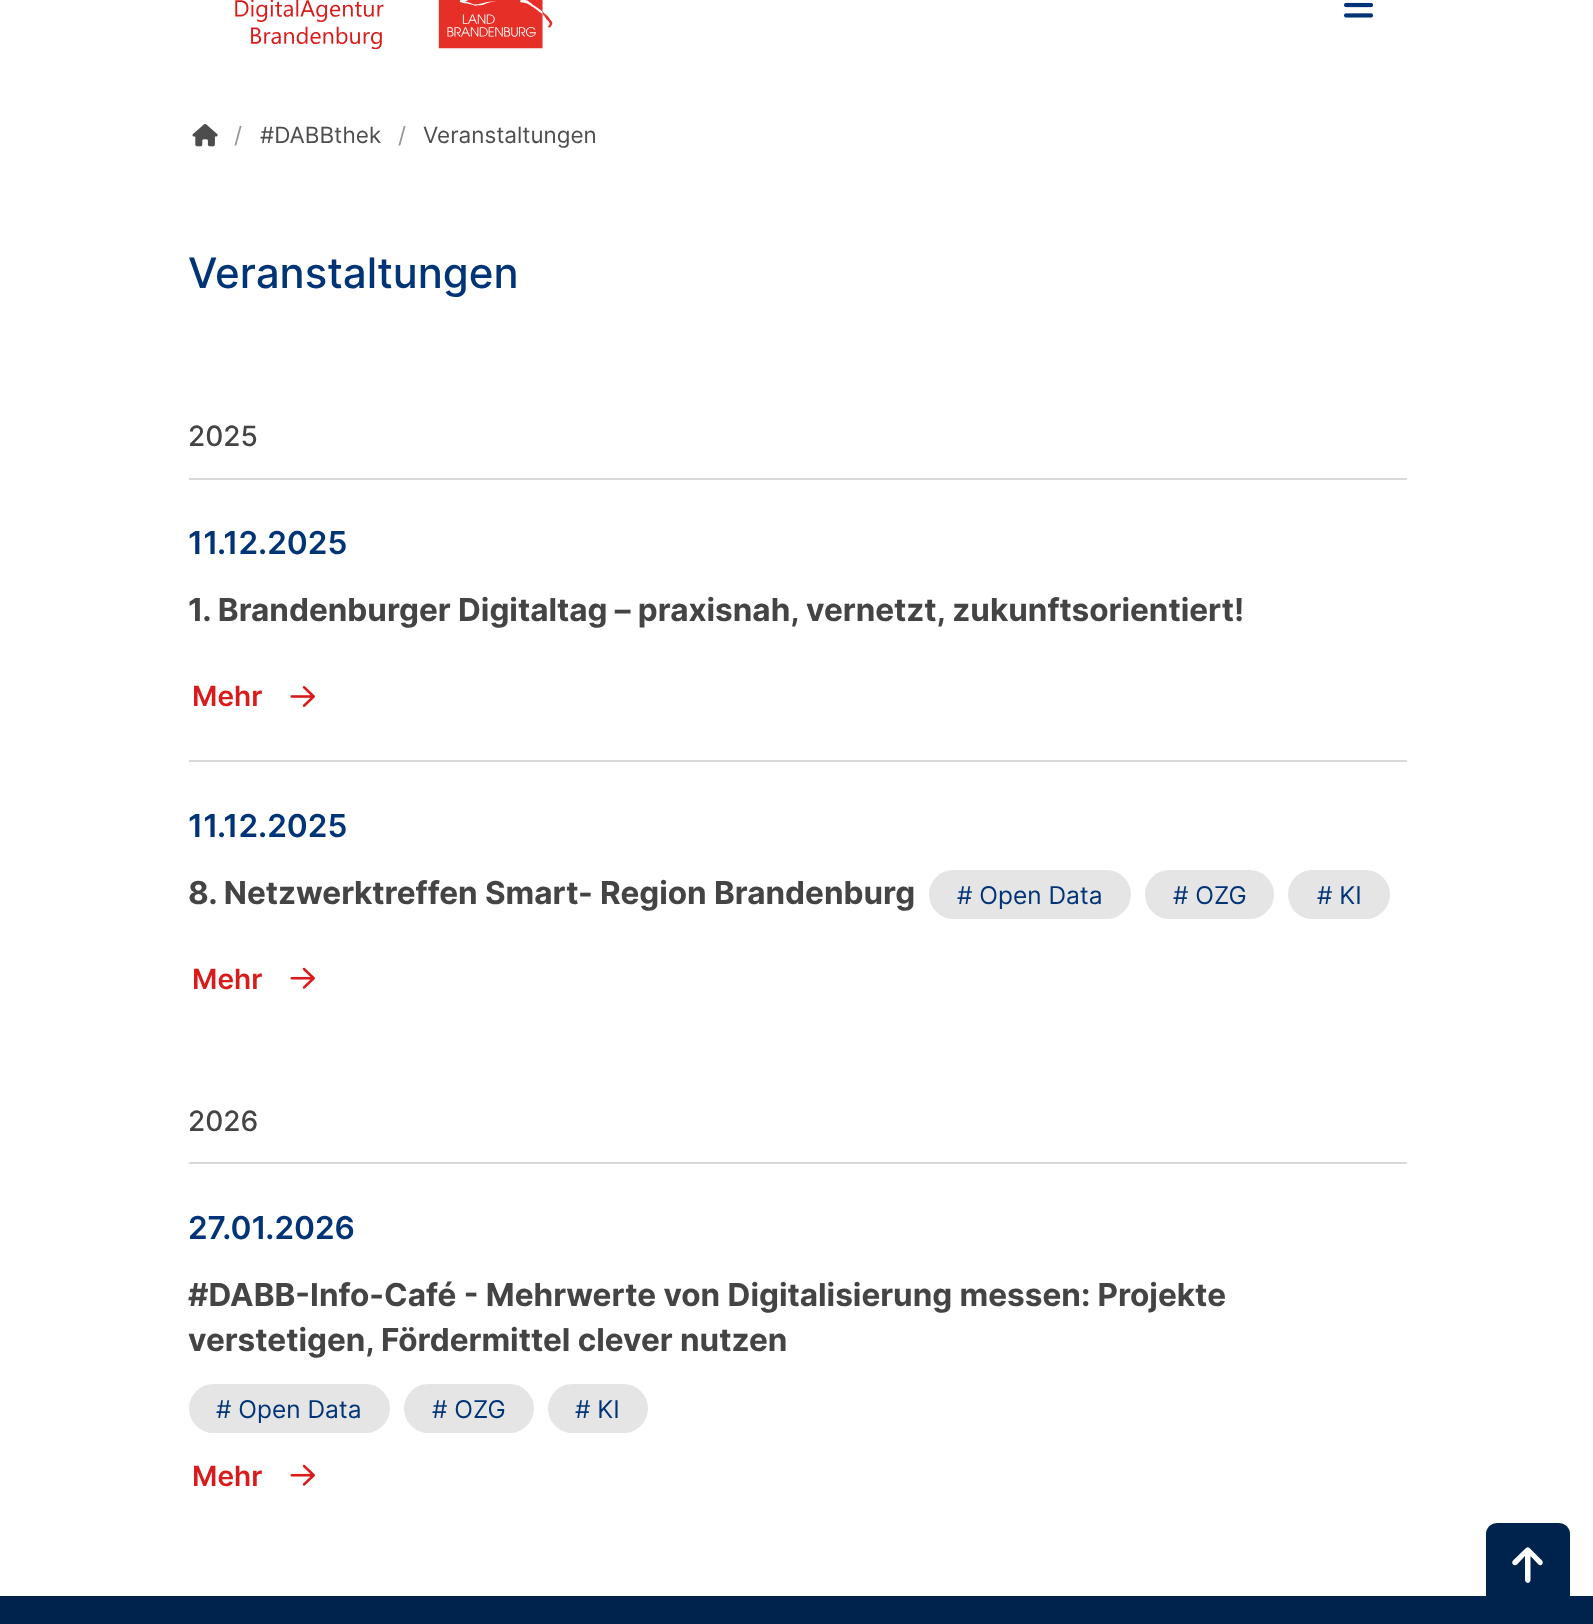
<svg xmlns="http://www.w3.org/2000/svg" width="1593" height="1624">
<style>
.a{font:22.5px Inter;fill:#949494}
.b{font:22.5px Inter;fill:#4d4d4d}
.c{font:500 42px Inter;fill:#003476}
.d{font:500 28px Inter;fill:#444}
.e{font:600 31.5px Inter;fill:#003476}
.f{font:bold 31.5px Inter;fill:#444}
.g{font:600 28px Inter;fill:#da1b1b}
.h{font:24.5px Inter;fill:#003476}
</style>
<rect width="100%" height="100%" fill="#fff"/>
<image href="1.png" x="235" y="0" width="149" height="49"/>
<image href="2.png" x="438" y="0" width="115" height="49"/>
<image href="3.png" x="1344" y="2" width="30" height="16"/>
<image href="4.png" x="192" y="123" width="26" height="24"/>
<path fill="#d9d9d9" d="M189 478h1218v2H189z"/>
<image href="5.png" x="290" y="686" width="25" height="21"/>
<path fill="#d9d9d9" d="M189 760h1218v2H189z"/>
<rect fill="#e5e5e5" x="929" y="870" width="202" height="49" rx="24.5"/>
<rect fill="#e5e5e5" x="1145" y="870" width="129" height="49" rx="24.5"/>
<rect fill="#e5e5e5" x="1288" y="870" width="102" height="49" rx="24.5"/>
<image href="6.png" x="290" y="967" width="25" height="22"/>
<path fill="#d9d9d9" d="M189 1162h1218v2H189z"/>
<rect fill="#e5e5e5" x="189" y="1384" width="201" height="49" rx="24.5"/>
<rect fill="#e5e5e5" x="404" y="1384" width="130" height="49" rx="24.5"/>
<rect fill="#e5e5e5" x="548" y="1384" width="100" height="49" rx="24.5"/>
<image href="6.png" x="290" y="1464" width="25" height="22"/>
<path fill="#00234e" d="M0 1596h1593v28H0z"/>
<rect fill="#00234e" x="1486" y="1523" width="84" height="84" rx="11"/>
<path fill="#fff" d="M1529.5 1548l12.5 12.5c1 1 1 3 0 4c-.5 1-2.5 1-3.5 0l-8-8.5v24c0 1.5-1.5 3-2.5 3c-1.5 0-3-1.5-3-3v-24l-8 8.5c-1 1-3 1-4 0c-1-1-1-3 0-4l13-12.5c1-1 2.5-1 3.5 0z"/>
<text class="a" x="234" y="143">/</text>
<text class="b" x="260" y="143">#DABBthek</text>
<text class="a" x="398" y="143">/</text>
<text class="b" x="423" y="143">Veranstaltungen</text>
<text class="c" x="188" y="288">Veranstaltungen</text>
<text class="d" x="188" y="446">2025</text>
<text class="e" x="188" y="554">11.12.2025</text>
<text class="f" x="188" y="621">1. Brandenburger Digitaltag – praxisnah, vernetzt, zukunftsorientiert!</text>
<text class="g" x="192" y="706">Mehr</text>
<text class="e" x="188" y="837">11.12.2025</text>
<text class="f" x="188" y="904">8. Netzwerktreffen Smart- Region Brandenburg</text>
<text class="h" x="957" y="904"># Open Data</text>
<text class="h" x="1173" y="904"># OZG</text>
<text class="h" x="1317" y="904"># KI</text>
<text class="g" x="192" y="989">Mehr</text>
<text class="d" x="188" y="1131">2026</text>
<text class="e" x="188" y="1239">27.01.2026</text>
<text class="f" x="188" y="1306">#DABB-Info-Café - Mehrwerte von Digitalisierung messen: Projekte</text>
<text class="f" x="188" y="1351">verstetigen, Fördermittel clever nutzen</text>
<text class="h" x="216" y="1418"># Open Data</text>
<text class="h" x="432" y="1418"># OZG</text>
<text class="h" x="575" y="1418"># KI</text>
<text class="g" x="192" y="1486">Mehr</text>
</svg>
